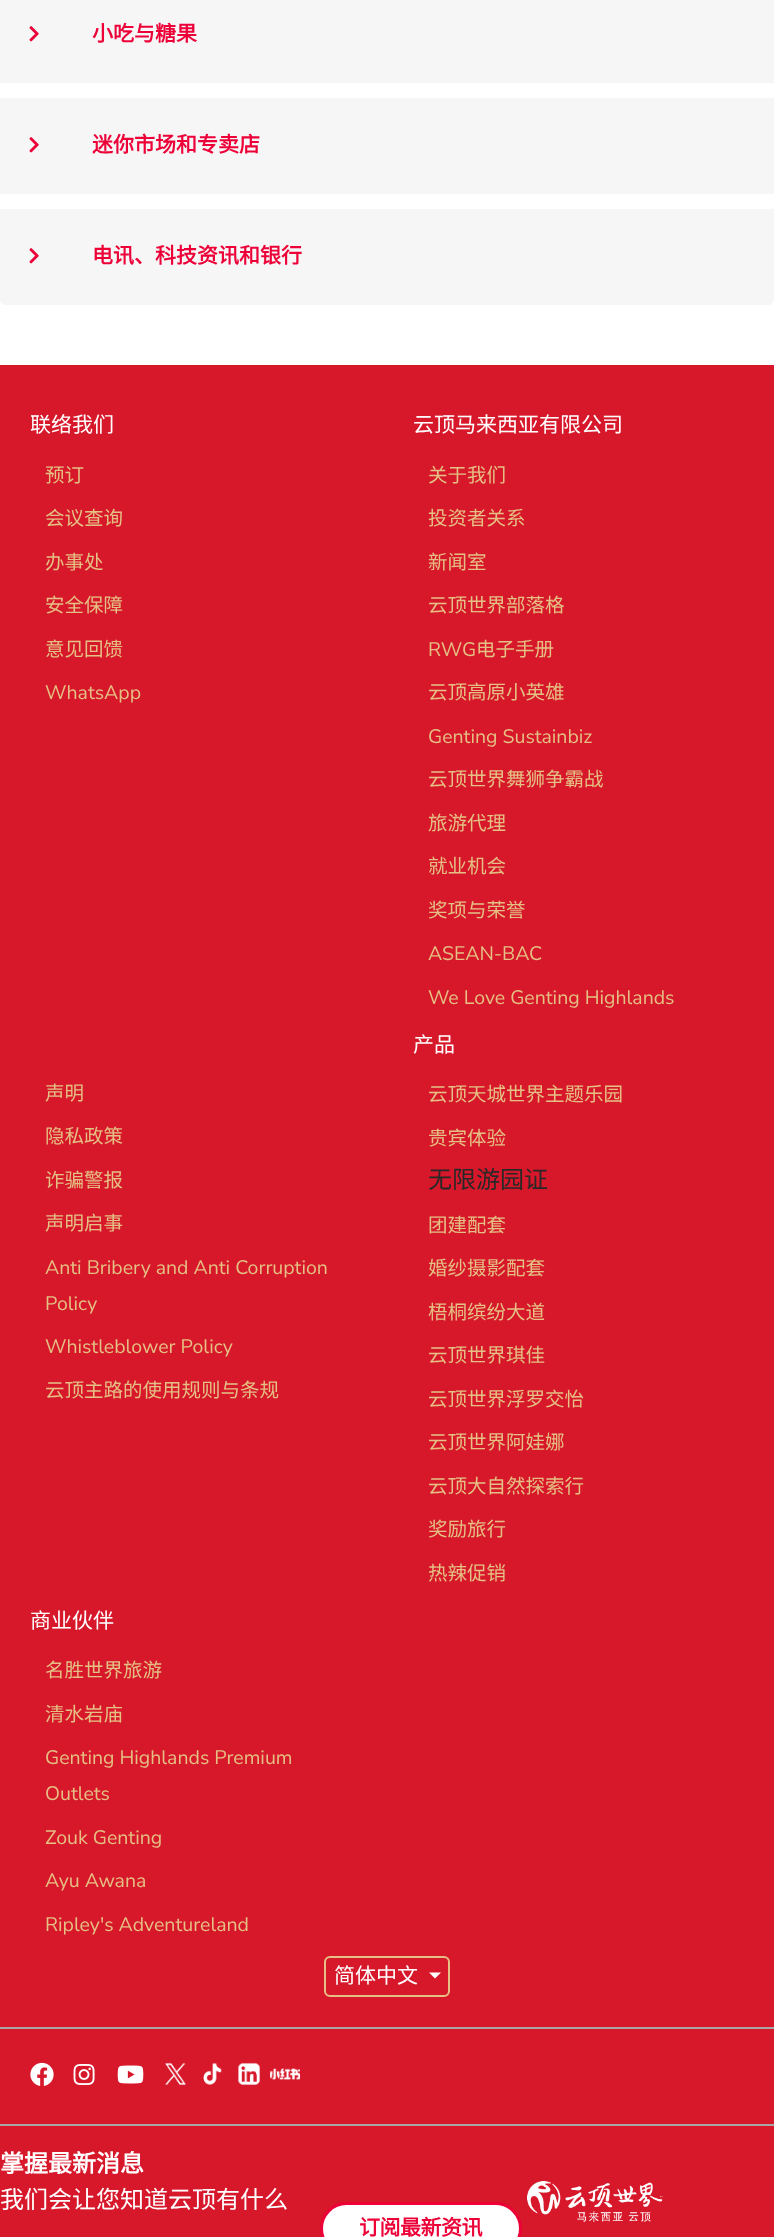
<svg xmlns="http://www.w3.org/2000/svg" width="774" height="2237">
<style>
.a{font:bold 21px Noto Sans CJK SC;fill:#ec0037}
.b{font:21px Noto Sans CJK SC;fill:#fff}
.c{font:19.5px Noto Sans CJK SC;fill:#e5bf83}
.d{font:19.5px Nunito Sans;fill:#e5bf83}
.e{font:24px Noto Sans CJK SC;fill:#282828}
.f{font:bold 24px Noto Sans CJK SC;fill:#fff}
.g{font:24px Noto Sans CJK SC;fill:#fff}
.h{font:bold 21px Noto Sans CJK SC;letter-spacing:-0.5px;fill:#ec0037}
</style>
<rect width="100%" height="100%" fill="#fff"/>
<path fill="#f6f6f6" d="M0 0h774v83H0z"/>
<image href="1.png" x="29" y="26" width="10" height="16"/>
<path fill="#f6f6f6" d="M0 98h774v96H0z"/>
<image href="1.png" x="29" y="137" width="10" height="16"/>
<path fill="#f6f6f6" d="M0 209h774v90c0 3.5-2.5 6-6 6h-762c-3.5 0-6-2.5-6-6z"/>
<image href="1.png" x="29" y="248" width="10" height="16"/>
<path fill="#d7182a" d="M0 365h774v1872H0z"/>
<rect fill="none" stroke="#e5bf83" stroke-width="2" x="325" y="1957" width="124" height="39" rx="5"/>
<path fill="#fff" d="M429 1972.5h12l-6 6z"/>
<path fill="#a6a6a6" d="M0 2027h774v2H0z"/>
<path fill="#a6a6a6" d="M0 2124h774v2H0z"/>
<image href="2.png" x="30" y="2062" width="24" height="24"/>
<image href="3.png" x="73" y="2064" width="22" height="21"/>
<image href="4.png" x="117" y="2065" width="27" height="19"/>
<image href="5.png" x="165" y="2062" width="21" height="23"/>
<image href="6.png" x="203" y="2063" width="19" height="22"/>
<image href="7.png" x="238" y="2062" width="22" height="23"/>
<image href="8.png" x="270" y="2068" width="30" height="12"/>
<rect fill="#fff" stroke="#ec0037" stroke-width="3" x="321.5" y="2203.5" width="199" height="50" rx="25"/>
<image href="9.png" x="527" y="2181" width="136" height="41"/>
<text class="a" x="92" y="41">小吃与糖果</text>
<text class="a" x="92" y="152">迷你市场和专卖店</text>
<text class="a" x="92" y="263">电讯、科技资讯和银行</text>
<text class="b" x="30" y="432">联络我们</text>
<text class="c" x="45" y="482">预订</text>
<text class="c" x="45" y="525">会议查询</text>
<text class="c" x="45" y="569">办事处</text>
<text class="c" x="45" y="612">安全保障</text>
<text class="c" x="45" y="656">意见回馈</text>
<text class="d" x="45" y="699">WhatsApp</text>
<text class="b" x="413" y="432">云顶马来西亚有限公司</text>
<text class="c" x="428" y="482">关于我们</text>
<text class="c" x="428" y="525">投资者关系</text>
<text class="c" x="428" y="569">新闻室</text>
<text class="c" x="428" y="612">云顶世界部落格</text>
<text class="d" x="428" y="656">RWG</text>
<text class="c" x="476" y="656">电子手册</text>
<text class="c" x="428" y="699">云顶高原小英雄</text>
<text class="d" x="428" y="743">Genting Sustainbiz</text>
<text class="c" x="428" y="786">云顶世界舞狮争霸战</text>
<text class="c" x="428" y="830">旅游代理</text>
<text class="c" x="428" y="873">就业机会</text>
<text class="c" x="428" y="917">奖项与荣誉</text>
<text class="d" x="428" y="960">ASEAN-BAC</text>
<text class="d" x="428" y="1004">We Love Genting Highlands</text>
<text class="c" x="45" y="1100">声明</text>
<text class="c" x="45" y="1143">隐私政策</text>
<text class="c" x="45" y="1187">诈骗警报</text>
<text class="c" x="45" y="1230">声明启事</text>
<text class="d" x="45" y="1274">Anti Bribery and Anti Corruption</text>
<text class="d" x="45" y="1310">Policy</text>
<text class="d" x="45" y="1353">Whistleblower Policy</text>
<text class="c" x="45" y="1397">云顶主路的使用规则与条规</text>
<text class="b" x="413" y="1052">产品</text>
<text class="c" x="428" y="1101">云顶天城世界主题乐园</text>
<text class="c" x="428" y="1145">贵宾体验</text>
<text class="e" x="428" y="1188">无限游园证</text>
<text class="c" x="428" y="1232">团建配套</text>
<text class="c" x="428" y="1275">婚纱摄影配套</text>
<text class="c" x="428" y="1319">梧桐缤纷大道</text>
<text class="c" x="428" y="1362">云顶世界琪佳</text>
<text class="c" x="428" y="1406">云顶世界浮罗交怡</text>
<text class="c" x="428" y="1449">云顶世界阿娃娜</text>
<text class="c" x="428" y="1493">云顶大自然探索行</text>
<text class="c" x="428" y="1536">奖励旅行</text>
<text class="c" x="428" y="1580">热辣促销</text>
<text class="b" x="30" y="1628">商业伙伴</text>
<text class="c" x="45" y="1677">名胜世界旅游</text>
<text class="c" x="45" y="1721">清水岩庙</text>
<text class="d" x="45" y="1764">Genting Highlands Premium</text>
<text class="d" x="45" y="1800">Outlets</text>
<text class="d" x="45" y="1844">Zouk Genting</text>
<text class="d" x="45" y="1887">Ayu Awana</text>
<text class="d" x="45" y="1931">Ripley's Adventureland</text>
<text class="b" x="334" y="1983">简体中文</text>
<text class="f" x="0" y="2172">掌握最新消息</text>
<text class="g" x="0" y="2208">我们会让您知道云顶有什么</text>
<text class="h" x="359" y="2235">订阅最新资讯</text>
</svg>
